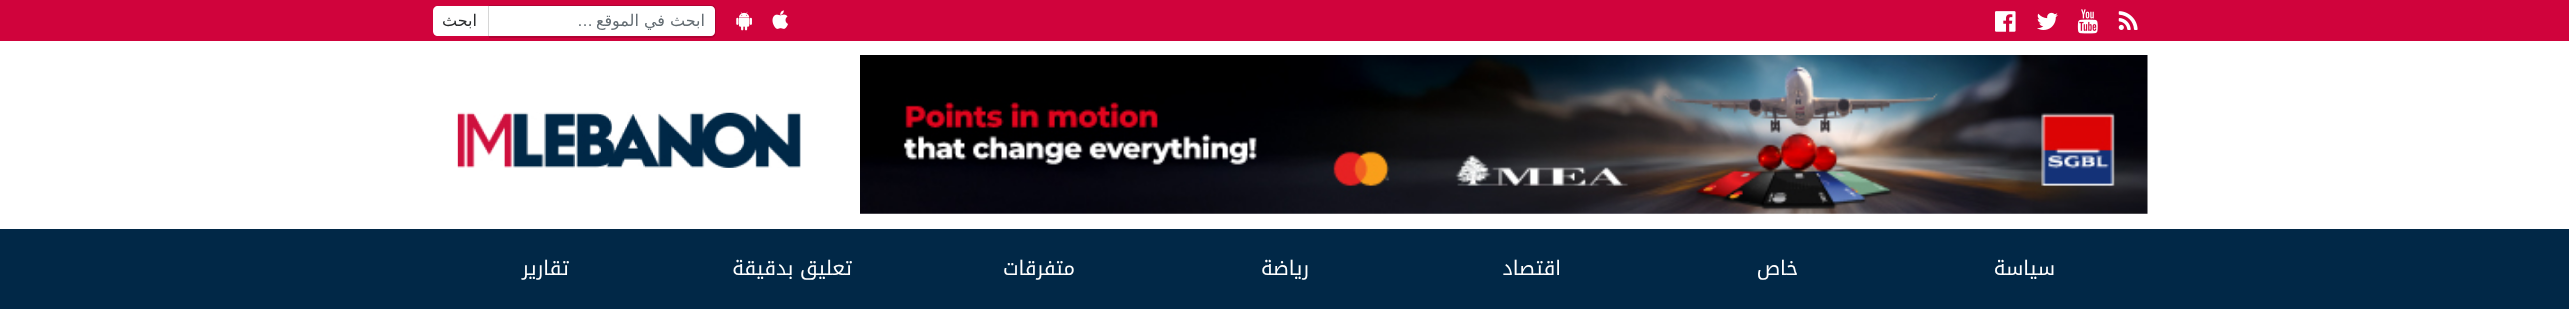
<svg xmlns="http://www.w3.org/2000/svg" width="2569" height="333">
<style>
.a{font:16px DejaVu Sans;direction:rtl;fill:#636c72}
.b{font:16px Liberation Sans;direction:rtl;fill:#636c72}
.c{font:16px DejaVu Sans;direction:rtl;fill:#292b2c}
.d{font:20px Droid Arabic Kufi;direction:rtl;fill:#fff}
</style>
<rect width="100%" height="100%" fill="#fff"/>
<path fill="#d0033c" d="M0 0h2569v41H0z"/>
<image href="1.png" x="2118" y="11" width="20" height="19"/>
<image href="2.png" x="2077" y="9" width="21" height="25"/>
<image href="3.png" x="2037" y="12" width="21" height="18"/>
<image href="4.png" x="1995" y="11" width="21" height="21"/>
<image href="5.png" x="772" y="10" width="16" height="19"/>
<image href="6.png" x="736" y="11" width="16" height="20"/>
<path fill="#fff" d="M489 6h222c2 0 4 2 4 4v22c0 2-2 4-4 4h-222z"/>
<path fill="#00000026" fill-rule="evenodd" d="M489 5h222c3 0 5 2 5 5v22c0 3-2 6-5 6h-222zm0 1h222c2 0 4 2 4 4v22c0 3-2 4-4 4h-222z"/>
<path fill="#fff" d="M438 6h51v30h-51c-3 0-5-2-5-5v-20c0-3 2-5 5-5z"/>
<path fill="#d6d6d6" d="M488 6h1v30H488z"/>
<image href="7.png" x="860" y="55" width="1288" height="159"/>
<image href="8.png" x="457" y="112" width="344" height="56"/>
<path fill="#012847" d="M0 229h2569v80H0z"/>
<text class="a" x="705" y="26">ابحث في الموقع</text>
<text class="b" x="593" y="26">…</text>
<text class="c" x="477" y="26">ابحث</text>
<text class="d" x="2055" y="275">سياسة</text>
<text class="d" x="1798" y="275">خاص</text>
<text class="d" x="1561" y="275">اقتصاد</text>
<text class="d" x="1309" y="275">رياضة</text>
<text class="d" x="1075" y="275">متفرقات</text>
<text class="d" x="852" y="275">تعليق بدقيقة</text>
<text class="d" x="569" y="275">تقارير</text>
</svg>
